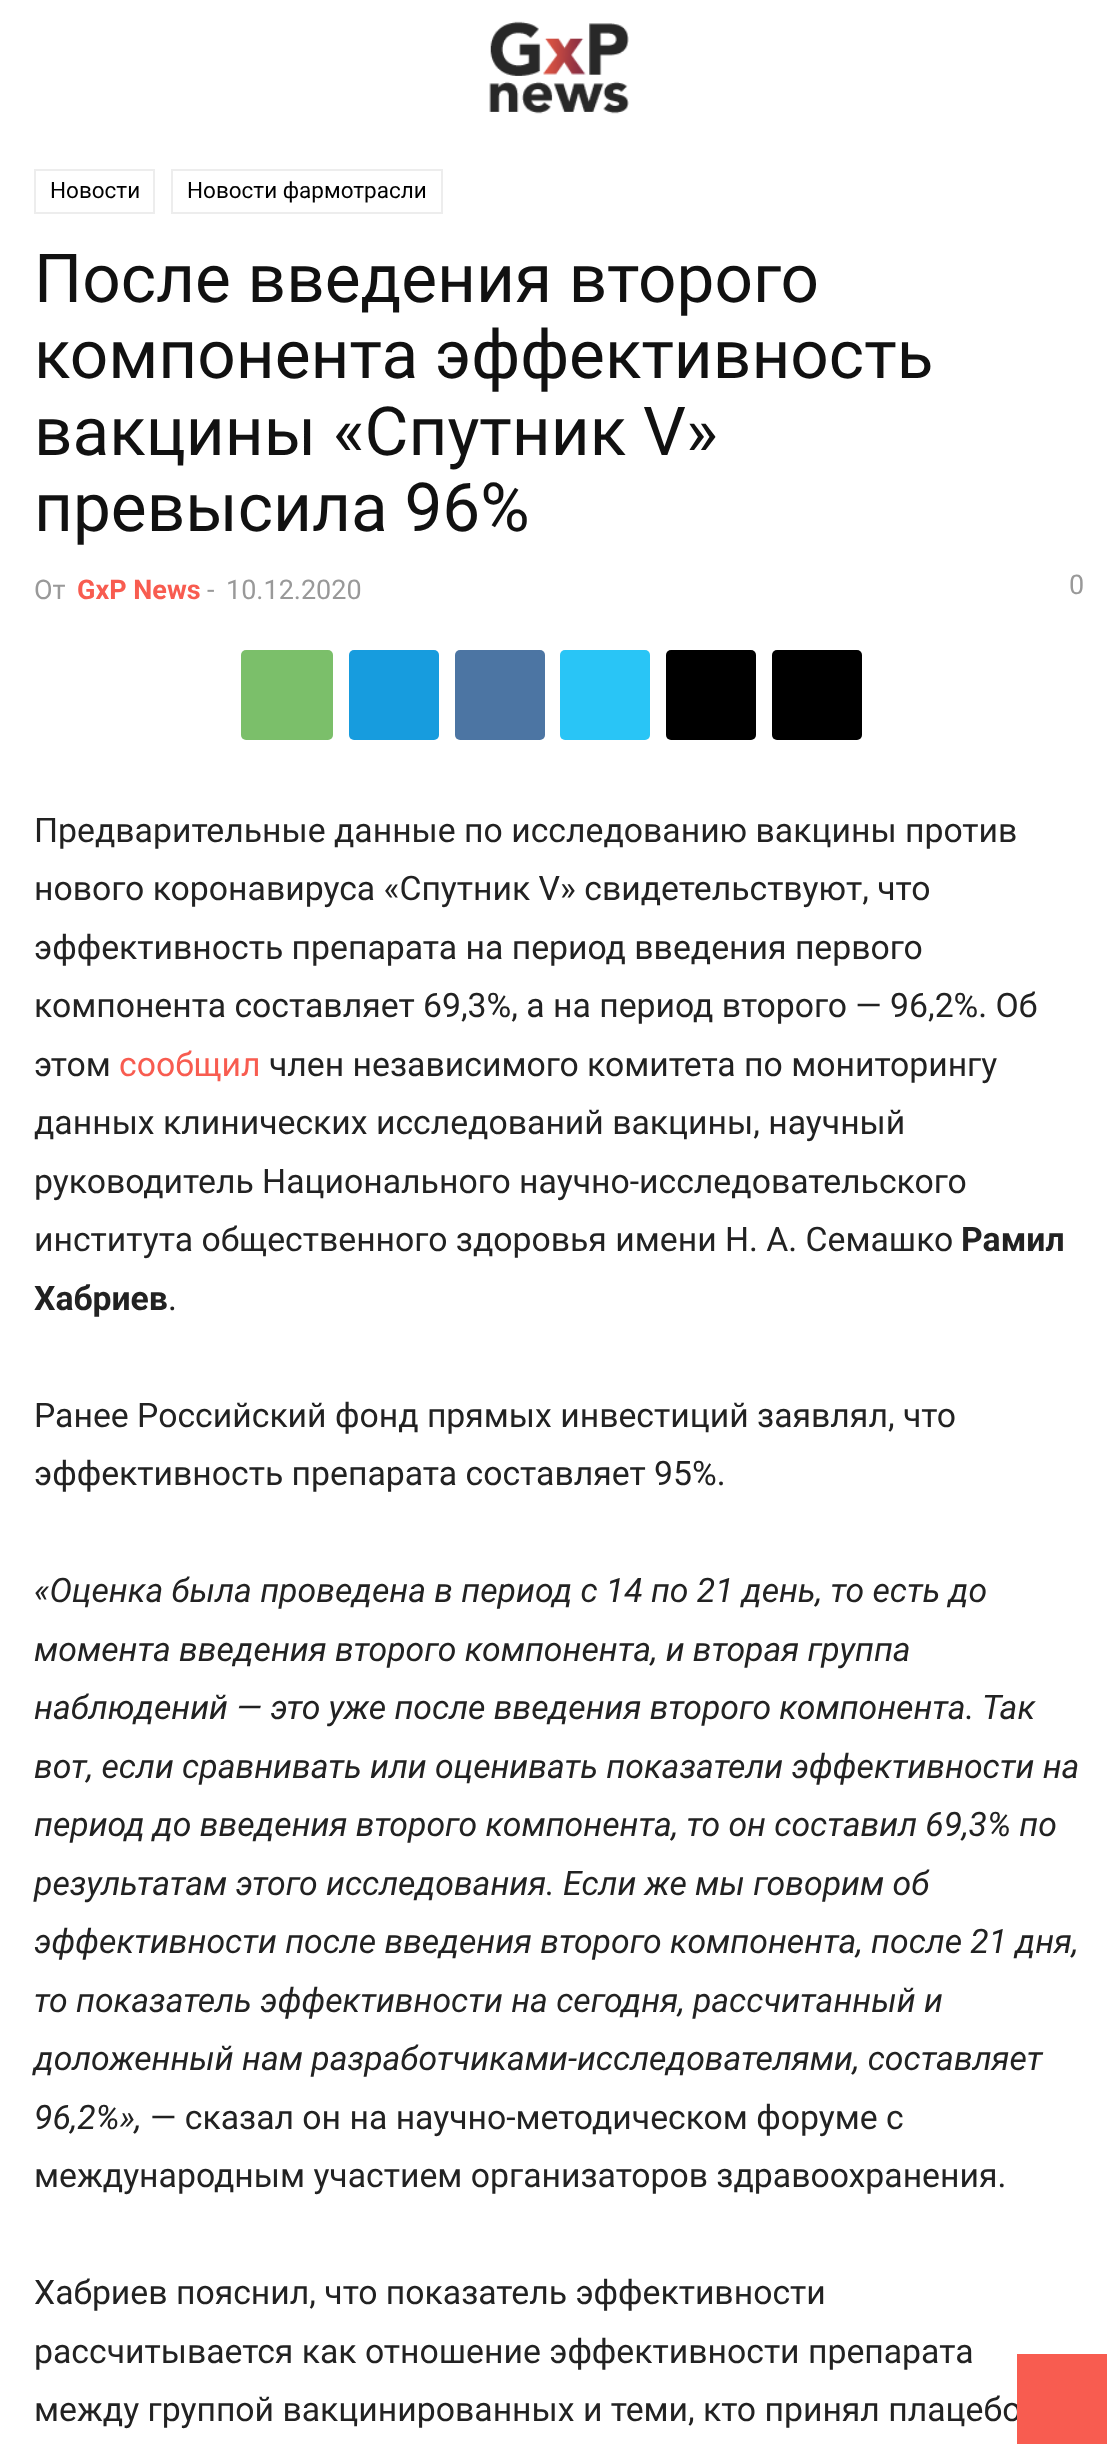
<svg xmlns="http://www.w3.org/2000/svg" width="1118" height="2452">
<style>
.a{font:22.5px Roboto;fill:#000}
.b{font:67.5px Roboto;fill:#111}
.c{font:27px Roboto;fill:#999}
.d{font:bold 27px Roboto;fill:#f85c50}
.e{font:33.75px Roboto;fill:#222}
.f{font:33.75px Roboto;fill:#f85c50}
.g{font:bold 33.75px Roboto;fill:#222}
.h{font:italic 33.75px Roboto;fill:#222}
</style>
<rect width="100%" height="100%" fill="#fff"/>
<image href="1.png" x="489" y="21" width="140" height="93"/>
<path fill="none" stroke="#ededed" stroke-width="2" d="M35 170h119v43H35z"/>
<path fill="none" stroke="#ededed" stroke-width="2" d="M172 170h270v43H172z"/>
<rect fill="#7bbf6a" x="241" y="650" width="92" height="90" rx="5"/>
<rect fill="#179cde" x="349" y="650" width="90" height="90" rx="5"/>
<rect fill="#4c75a3" x="455" y="650" width="90" height="90" rx="5"/>
<rect fill="#29c5f6" x="560" y="650" width="90" height="90" rx="5"/>
<rect fill="#000" x="666" y="650" width="90" height="90" rx="5"/>
<rect fill="#000" x="772" y="650" width="90" height="90" rx="5"/>
<text class="a" x="50" y="198">Новости</text>
<text class="a" x="187" y="198">Новости фармотрасли</text>
<text class="b" x="34" y="302">После введения второго</text>
<text class="b" x="34" y="378">компонента эффективность</text>
<text class="b" x="34" y="455">вакцины «Спутник V»</text>
<text class="b" x="34" y="531">превысила 96%</text>
<text class="c" x="34" y="599">От</text>
<text class="d" x="77" y="599">GxP News</text>
<text class="c" x="207" y="599">-</text>
<text class="c" x="226" y="599">10.12.2020</text>
<text class="c" x="1069" y="594">0</text>
<text class="e" x="34" y="842">Предварительные данные по исследованию вакцины против</text>
<text class="e" x="34" y="900">нового коронавируса «Спутник V» свидетельствуют, что</text>
<text class="e" x="34" y="959">эффективность препарата на период введения первого</text>
<text class="e" x="34" y="1017">компонента составляет 69,3%, а на период второго — 96,2%. Об</text>
<text class="e" x="34" y="1076">этом</text>
<text class="f" x="119" y="1076">сообщил</text>
<text class="e" x="269" y="1076">член независимого комитета по мониторингу</text>
<text class="e" x="34" y="1134">данных клинических исследований вакцины, научный</text>
<text class="e" x="34" y="1193">руководитель Национального научно-исследовательского</text>
<text class="e" x="34" y="1251">института общественного здоровья имени Н. А. Семашко</text>
<text class="g" x="961" y="1251">Рамил</text>
<text class="g" x="34" y="1310">Хабриев</text>
<text class="e" x="168" y="1310">.</text>
<text class="e" x="34" y="1427">Ранее Российский фонд прямых инвестиций заявлял, что</text>
<text class="e" x="34" y="1485">эффективность препарата составляет 95%.</text>
<text class="h" x="34" y="1602">«Оценка была проведена в период с 14 по 21 день, то есть до</text>
<text class="h" x="34" y="1661">момента введения второго компонента, и вторая группа</text>
<text class="h" x="34" y="1719">наблюдений — это уже после введения второго компонента. Так</text>
<text class="h" x="34" y="1778">вот, если сравнивать или оценивать показатели эффективности на</text>
<text class="h" x="34" y="1836">период до введения второго компонента, то он составил 69,3% по</text>
<text class="h" x="34" y="1895">результатам этого исследования. Если же мы говорим об</text>
<text class="h" x="34" y="1953">эффективности после введения второго компонента, после 21 дня,</text>
<text class="h" x="34" y="2012">то показатель эффективности на сегодня, рассчитанный и</text>
<text class="h" x="34" y="2070">доложенный нам разработчиками-исследователями, составляет</text>
<text class="h" x="34" y="2129">96,2%»,</text>
<text class="e" x="150" y="2129">— сказал он на научно-методическом форуме с</text>
<text class="e" x="34" y="2187">международным участием организаторов здравоохранения.</text>
<text class="e" x="34" y="2304">Хабриев пояснил, что показатель эффективности</text>
<text class="e" x="34" y="2363">рассчитывается как отношение эффективности препарата</text>
<text class="e" x="34" y="2421">между группой вакцинированных и теми, кто принял плацебо</text>
<path fill="#f85c50" d="M1017 2354h90v90H1017z"/>
</svg>
